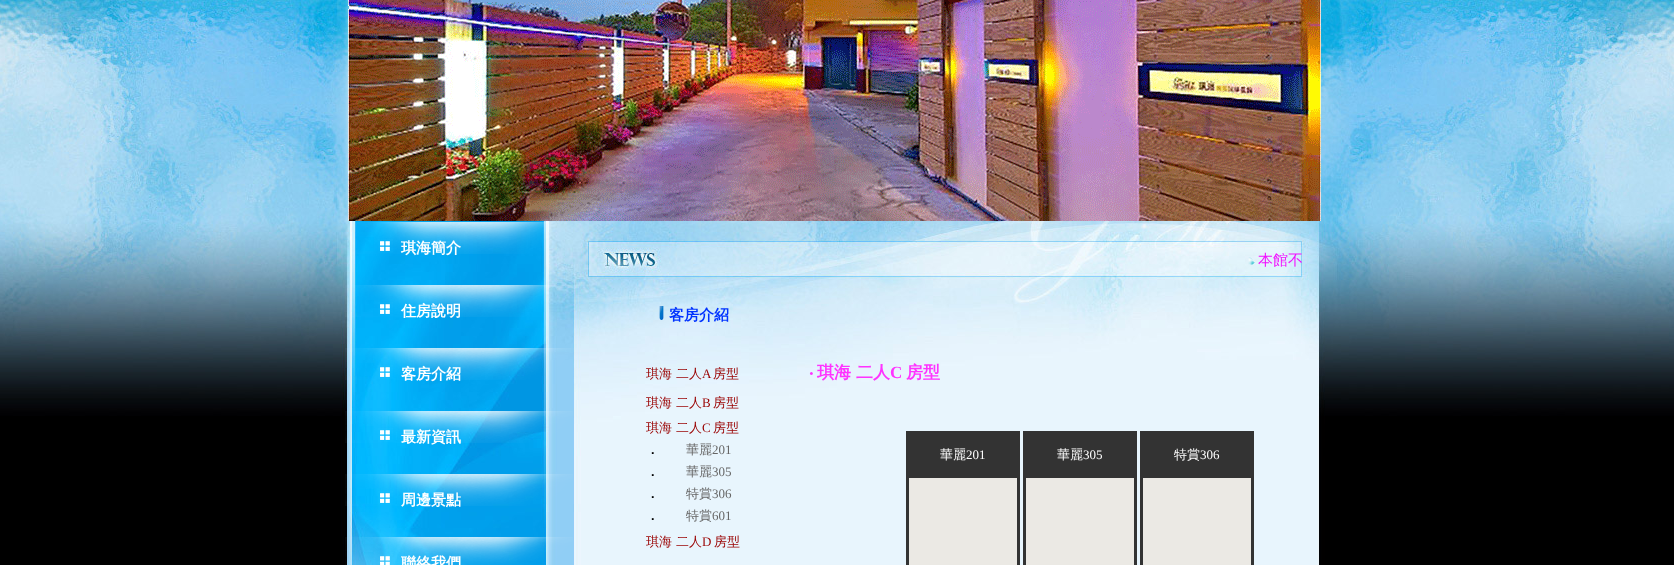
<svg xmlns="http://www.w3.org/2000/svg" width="1674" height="565">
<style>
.a{font:bold 15px WenQuanYi Zen Hei;fill:#fff}
.b{font:500 15px WenQuanYi Zen Hei;fill:#f110ff}
.c{font:bold 15px WenQuanYi Zen Hei;fill:#03f}
.d{font:500 13px WenQuanYi Zen Hei;fill:#900}
.e{font:13px Liberation Serif;fill:#900}
.f{font:bold 13px WenQuanYi Zen Hei;fill:#000}
.g{font:500 13px WenQuanYi Zen Hei;fill:#666}
.h{font:13px Liberation Serif;fill:#666}
.i{font:bold 17px Noto Sans;fill:#f3f}
.j{font:bold 17px WenQuanYi Zen Hei;fill:#f3f}
.k{font:bold 17px Liberation Serif;fill:#f3f}
.l{font:500 13px WenQuanYi Zen Hei;fill:#fff}
.m{font:13px Liberation Serif;fill:#fff}
</style>
<rect width="100%" height="100%" fill="#fff"/>
<image href="1.png" x="0" y="0" width="1674" height="565"/>
<image href="2.png" x="337" y="0" width="1000" height="221"/>
<image href="3.png" x="348" y="0" width="973" height="221"/>
<image href="4.png" x="345" y="222" width="222" height="32"/>
<image href="5.png" x="345" y="285" width="228" height="32"/>
<image href="6.png" x="345" y="348" width="229" height="32"/>
<image href="7.png" x="345" y="411" width="228" height="32"/>
<image href="8.png" x="345" y="474" width="228" height="32"/>
<image href="9.png" x="345" y="537" width="228" height="28"/>
<image href="10.png" x="1248" y="257" width="7" height="8"/>
<image href="11.png" x="659" y="306" width="5" height="14"/>
<path fill="#333" d="M906 431h114v134H906z"/>
<path fill="#ebe9e4" d="M909 478h108v87H909z"/>
<path fill="#333" d="M1023 431h114v134H1023z"/>
<path fill="#ebe9e4" d="M1026 478h108v87H1026z"/>
<path fill="#333" d="M1140 431h114v134H1140z"/>
<path fill="#ebe9e4" d="M1143 478h108v87H1143z"/>
<text class="a" x="401" y="253">琪海簡介</text>
<text class="a" x="401" y="316">住房說明</text>
<text class="a" x="401" y="379">客房介紹</text>
<text class="a" x="401" y="442">最新資訊</text>
<text class="a" x="401" y="505">周邊景點</text>
<text class="a" x="401" y="568">聯絡我們</text>
<text class="b" x="1258" y="265">本館不</text>
<text class="c" x="669" y="320">客房介紹</text>
<text class="d" x="646" y="378">琪海 二人</text>
<text class="e" x="702" y="378">A</text>
<text class="d" x="713" y="378">房型</text>
<text class="d" x="646" y="407">琪海 二人</text>
<text class="e" x="702" y="407">B</text>
<text class="d" x="713" y="407">房型</text>
<text class="d" x="646" y="432">琪海 二人</text>
<text class="e" x="702" y="432">C</text>
<text class="d" x="713" y="432">房型</text>
<text class="f" x="646" y="454">．</text>
<text class="g" x="686" y="454">華麗</text>
<text class="h" x="712" y="454">201</text>
<text class="f" x="646" y="476">．</text>
<text class="g" x="686" y="476">華麗</text>
<text class="h" x="712" y="476">305</text>
<text class="f" x="646" y="498">．</text>
<text class="g" x="686" y="498">特賞</text>
<text class="h" x="712" y="498">306</text>
<text class="f" x="646" y="520">．</text>
<text class="g" x="686" y="520">特賞</text>
<text class="h" x="712" y="520">601</text>
<text class="d" x="646" y="546">琪海 二人</text>
<text class="e" x="702" y="546">D</text>
<text class="d" x="714" y="546">房型</text>
<text class="i" x="809" y="378">‧</text>
<text class="j" x="817" y="378">琪海 二人</text>
<text class="k" x="890" y="378">C</text>
<text class="j" x="906" y="378">房型</text>
<text class="l" x="940" y="459">華麗</text>
<text class="m" x="966" y="459">201</text>
<text class="l" x="1057" y="459">華麗</text>
<text class="m" x="1083" y="459">305</text>
<text class="l" x="1174" y="459">特賞</text>
<text class="m" x="1200" y="459">306</text>
</svg>
